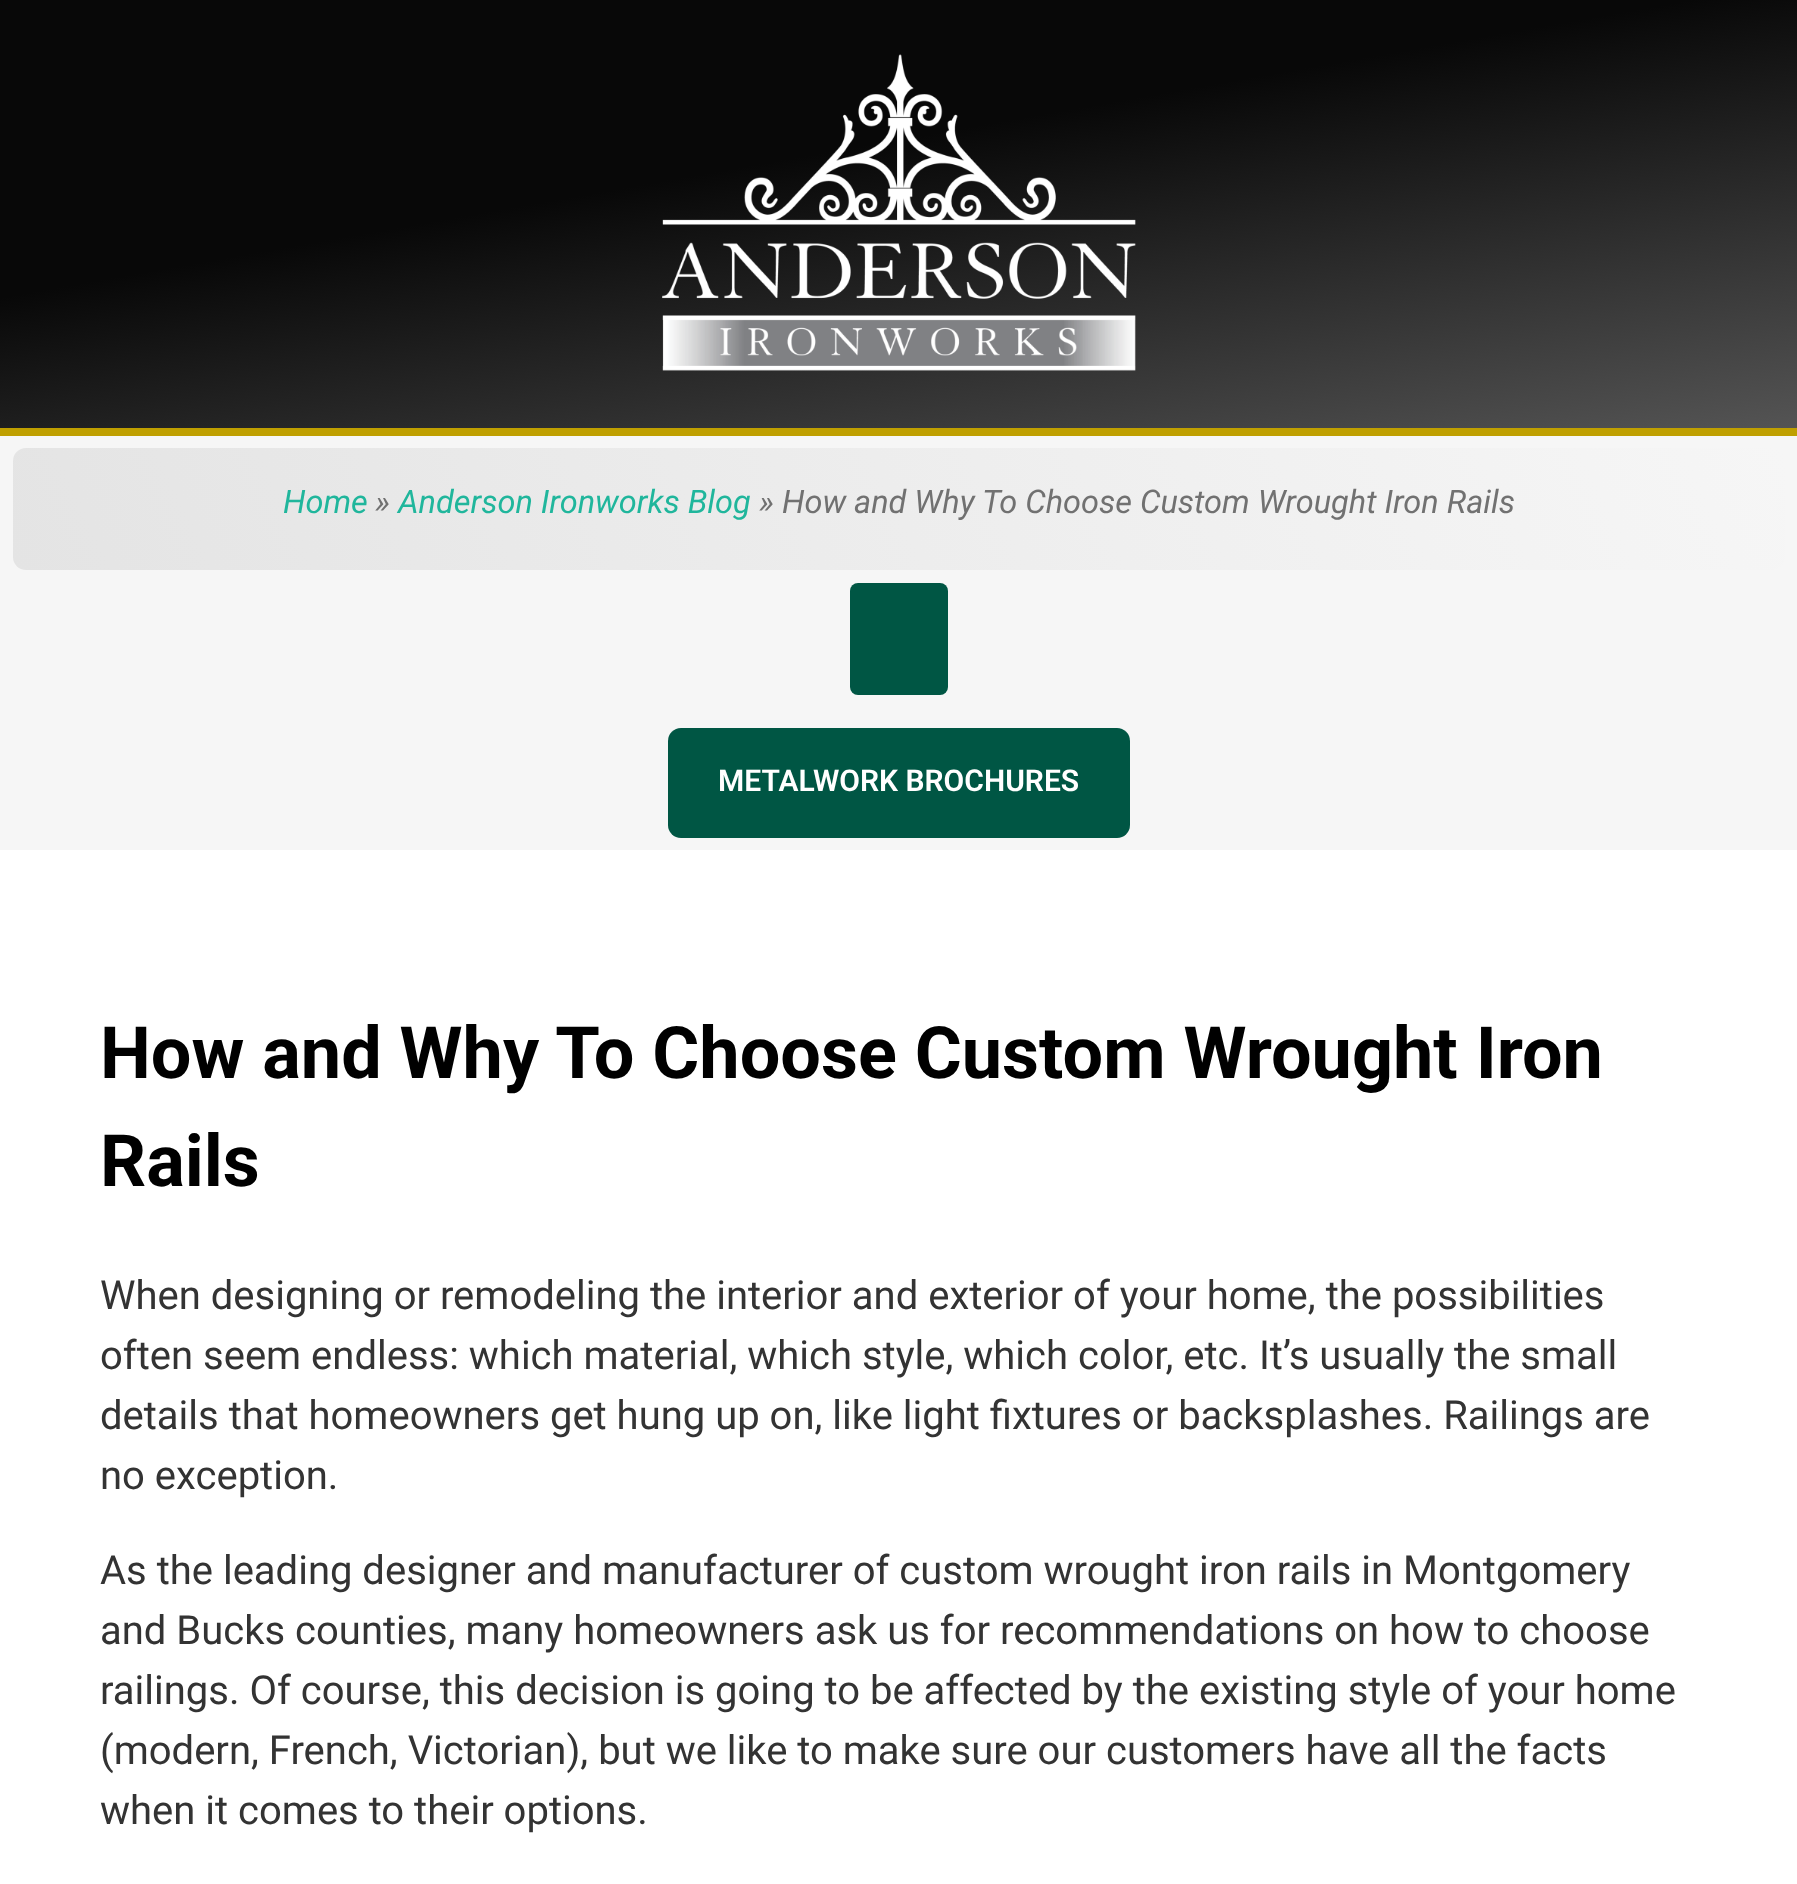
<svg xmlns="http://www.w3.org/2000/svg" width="1797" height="1884">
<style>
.a{font:italic 32.5px Roboto;fill:#20b69c}
.b{font:italic 32.5px Roboto;fill:#717171}
.c{font:600 30px Roboto;fill:#fff}
.d{font:bold 72px Roboto;fill:#000}
.e{font:40px Roboto;fill:#333}
</style>
<defs>
<linearGradient id="g1" gradientUnits="userSpaceOnUse" x1="835" y1="-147" x2="962" y2="575"><stop offset="0.4" stop-color="#080808"/><stop offset="1" stop-color="#545454"/></linearGradient>
<linearGradient id="g2" gradientUnits="userSpaceOnUse" x1="1650" y1="158" x2="147" y2="859"><stop offset="0" stop-color="#f6f6f6"/><stop offset="1" stop-color="#e4e4e4"/></linearGradient>
</defs>
<rect width="100%" height="100%" fill="#fff"/>
<path fill="url(#g1)" d="M0 0h1797v428H0z"/>
<image href="1.png" x="662" y="54" width="474" height="317"/>
<path fill="#f6f6f6" d="M0 436h1797v414H0z"/>
<path fill="#bf9f00" d="M0 428h1797v8H0z"/>
<rect fill="url(#g2)" x="13" y="448" width="1772" height="122" rx="13"/>
<rect fill="#005644" x="850" y="583" width="98" height="112" rx="8"/>
<rect fill="#005644" x="668" y="728" width="462" height="110" rx="13"/>
<text class="a" x="283" y="513">Home</text>
<text class="b" x="375" y="513">»</text>
<text class="a" x="398" y="513">Anderson Ironworks Blog</text>
<text class="b" x="759" y="513">» How and Why To Choose Custom Wrought Iron Rails</text>
<text class="c" x="718" y="791">METALWORK BROCHURES</text>
<text class="d" x="100" y="1078">How and Why To Choose Custom Wrought Iron</text>
<text class="d" x="100" y="1186">Rails</text>
<text class="e" x="100" y="1309">When designing or remodeling the interior and exterior of your home, the possibilities</text>
<text class="e" x="100" y="1369">often seem endless: which material, which style, which color, etc. It’s usually the small</text>
<text class="e" x="100" y="1429">details that homeowners get hung up on, like light fixtures or backsplashes. Railings are</text>
<text class="e" x="100" y="1489">no exception.</text>
<text class="e" x="100" y="1584">As the leading designer and manufacturer of custom wrought iron rails in Montgomery</text>
<text class="e" x="100" y="1644">and Bucks counties, many homeowners ask us for recommendations on how to choose</text>
<text class="e" x="100" y="1704">railings. Of course, this decision is going to be affected by the existing style of your home</text>
<text class="e" x="100" y="1764">(modern, French, Victorian), but we like to make sure our customers have all the facts</text>
<text class="e" x="100" y="1824">when it comes to their options.</text>
</svg>
